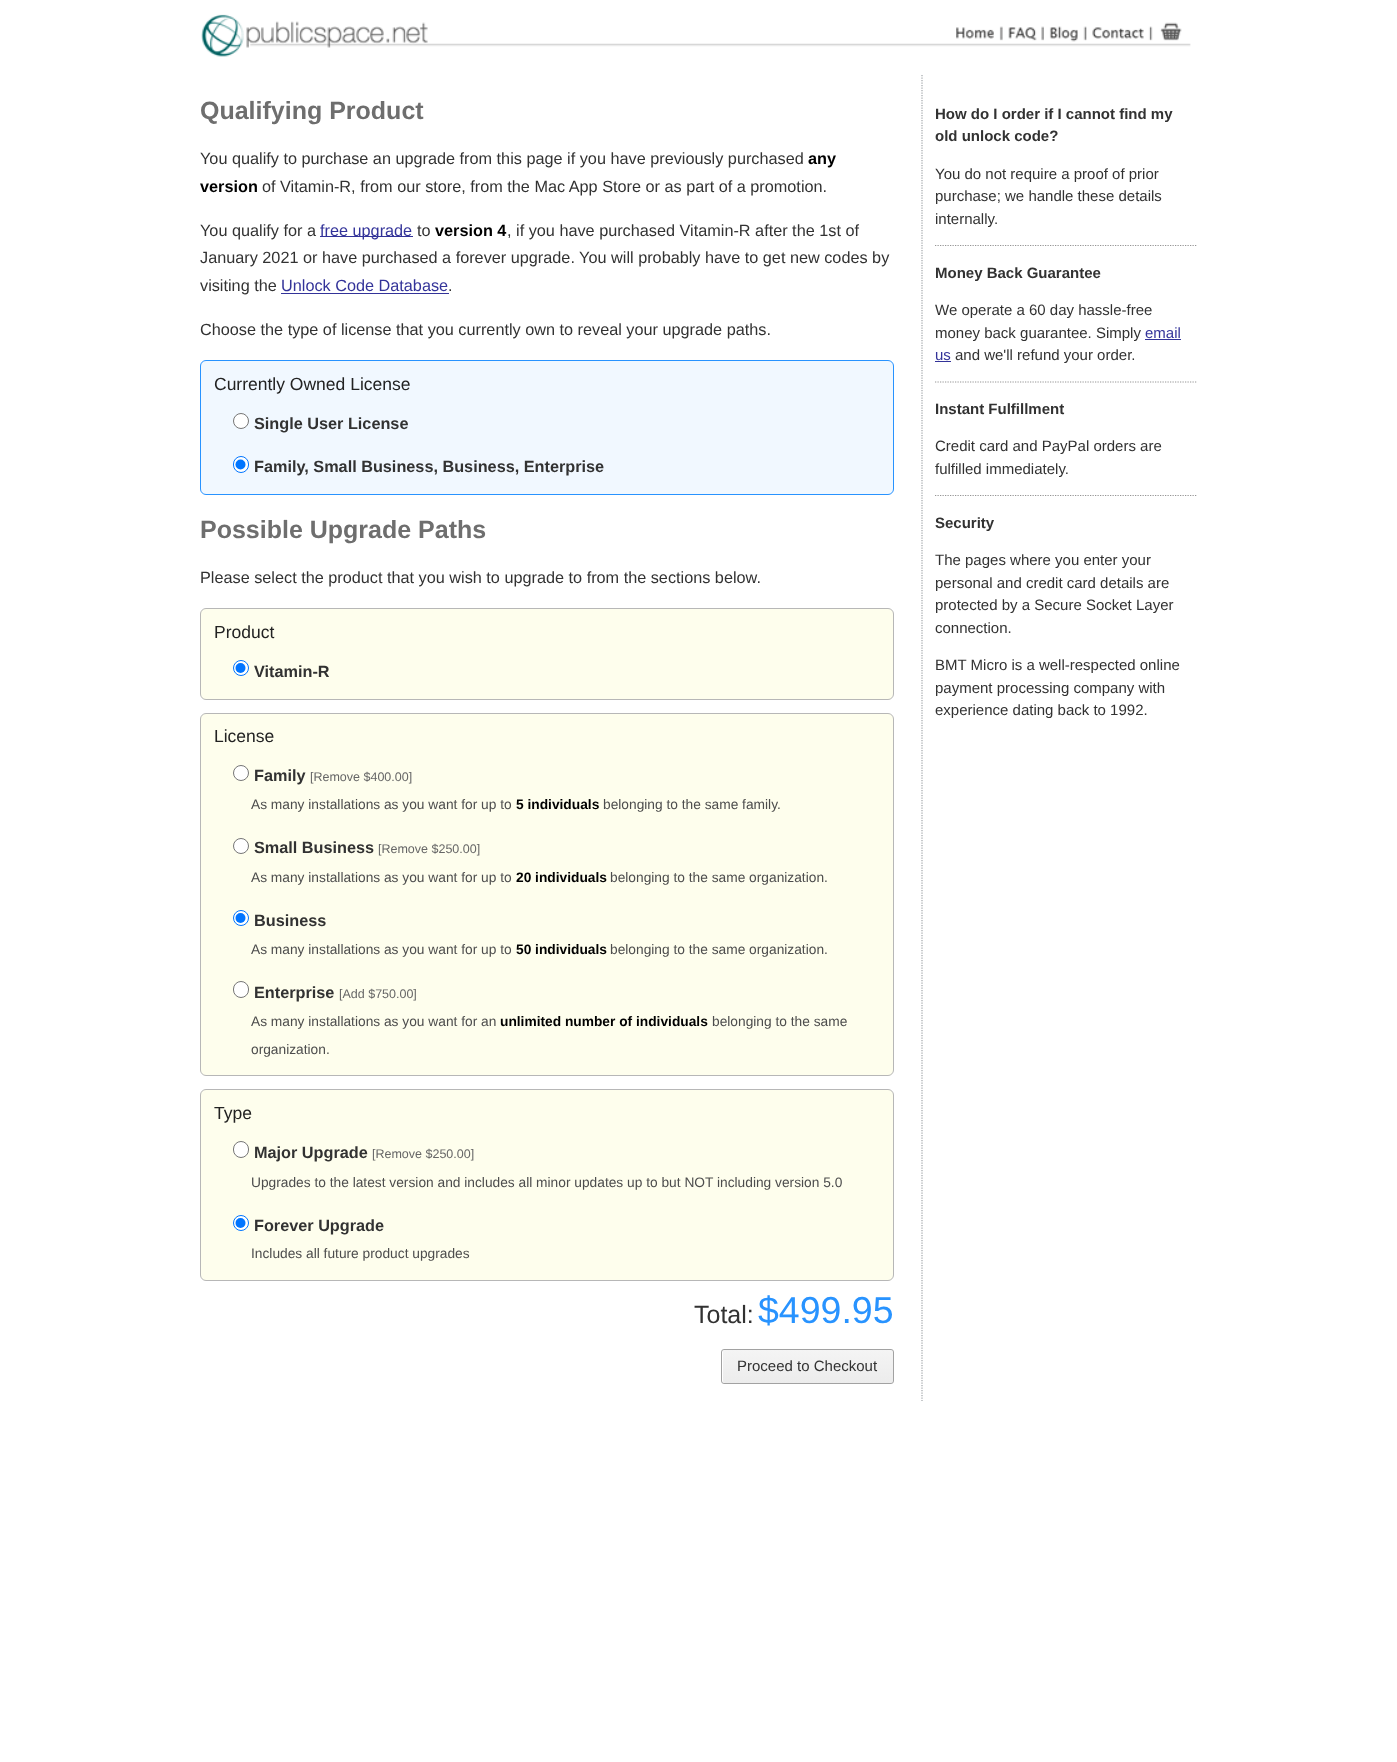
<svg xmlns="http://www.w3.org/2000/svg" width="1397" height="1762">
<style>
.a{font:bold 25px Liberation Sans;fill:#6e6e6e}
.b{font:16.25px Liberation Sans;fill:#323232}
.c{font:bold 16.25px Liberation Sans;fill:#000}
.d{font:16.25px Liberation Sans;fill:#339}
.e{font:17.5px Liberation Sans;fill:#222}
.f{font:bold 16.25px Liberation Sans;fill:#323232}
.g{font:12.5px Liberation Sans;fill:#666}
.h{font:13.75px Liberation Sans;fill:#4d4d4d}
.i{font:bold 13.75px Liberation Sans;fill:#000}
.j{font:25px Liberation Sans;fill:#323232}
.k{font:37.5px Liberation Sans;fill:#2893ff}
.l{font:15px Liberation Sans;fill:#323232}
.m{font:bold 15px Liberation Sans;fill:#323232}
.n{font:15px Liberation Sans;fill:#339}
</style>
<defs>
<linearGradient id="g1" gradientUnits="userSpaceOnUse" x1="808" y1="1350" x2="808" y2="1383"><stop offset="0" stop-color="#f4f4f4"/><stop offset="1" stop-color="#ececec"/></linearGradient>
</defs>
<rect width="100%" height="100%" fill="#fff"/>
<image href="1.png" x="201" y="14" width="990" height="43"/>
<path fill="#339" d="M320 236h93v1H320z"/>
<path fill="#339" d="M281 293h168v1H281z"/>
<rect fill="#f1f8ff" stroke="#2893ff" x="200.5" y="360.5" width="693" height="134" rx="5.5"/>
<circle fill="#fff" stroke="#767676" cx="241" cy="421" r="7.5"/>
<rect fill="#fff" stroke="#0075ff" x="233.5" y="456.5" width="15" height="16" rx="7.5"/>
<circle fill="#0075ff" cx="240.5" cy="464.5" r="5"/>
<rect fill="#fefeed" stroke="#b7b7b7" x="200.5" y="608.5" width="693" height="91" rx="5.5"/>
<circle fill="#fff" stroke="#0075ff" cx="241" cy="668" r="7.5"/>
<circle fill="#0075ff" cx="240.5" cy="668" r="5"/>
<rect fill="#fefeed" stroke="#b7b7b7" x="200.5" y="713.5" width="693" height="362" rx="5.5"/>
<circle fill="#fff" stroke="#767676" cx="241" cy="773" r="7.5"/>
<circle fill="#fff" stroke="#767676" cx="241" cy="846" r="7.5"/>
<circle fill="#fff" stroke="#0075ff" cx="241" cy="918" r="7.5"/>
<circle fill="#0075ff" cx="240.5" cy="918" r="5"/>
<rect fill="#fff" stroke="#767676" x="233.5" y="981.5" width="15" height="16" rx="7.5"/>
<rect fill="#fefeed" stroke="#b7b7b7" x="200.5" y="1089.5" width="693" height="191" rx="5.5"/>
<rect fill="#fff" stroke="#767676" x="233.5" y="1141.5" width="15" height="16" rx="7.5"/>
<circle fill="#fff" stroke="#0075ff" cx="241" cy="1223" r="7.5"/>
<circle fill="#0075ff" cx="240.5" cy="1223" r="5"/>
<rect fill="url(#g1)" x="723" y="1350" width="170" height="33" rx="2"/>
<rect fill="none" stroke="#a2a2a2" x="721.5" y="1349.5" width="172" height="34" rx="2.5"/>
<path fill="none" stroke="#a1a5a9" stroke-width="1.2" stroke-dasharray="1.25 1.25" d="M922 75v1326"/>
<path fill="none" stroke="#959595" stroke-width="1.2" stroke-dasharray="1.25 1.25" d="M935 245.5h262.5"/>
<path fill="#339" d="M1145 339h36v1H1145z"/>
<path fill="#339" d="M935 361h16v1H935z"/>
<path fill="none" stroke="#959595" stroke-width="1.2" stroke-dasharray="1.25 1.25" d="M935 382h262.5"/>
<path fill="none" stroke="#959595" stroke-width="1.2" stroke-dasharray="1.25 1.25" d="M935 495.5h262.5"/>
<text class="a" x="200" y="119">Qualifying Product</text>
<text class="b" x="200" y="164">You qualify to purchase an upgrade from this page if you have previously purchased</text>
<text class="c" x="808" y="164">any</text>
<text class="c" x="200" y="192">version</text>
<text class="b" x="262" y="192">of Vitamin-R, from our store, from the Mac App Store or as part of a promotion.</text>
<text class="b" x="200" y="236">You qualify for a</text>
<text class="d" x="320" y="236">free upgrade</text>
<text class="b" x="417" y="236">to</text>
<text class="c" x="435" y="236">version 4</text>
<text class="b" x="507" y="236">, if you have purchased Vitamin-R after the 1st of</text>
<text class="b" x="200" y="263">January 2021 or have purchased a forever upgrade. You will probably have to get new codes by</text>
<text class="b" x="200" y="291">visiting the</text>
<text class="d" x="281" y="291">Unlock Code Database</text>
<text class="b" x="448" y="291">.</text>
<text class="b" x="200" y="335">Choose the type of license that you currently own to reveal your upgrade paths.</text>
<text class="e" x="214" y="390">Currently Owned License</text>
<text class="f" x="254" y="429">Single User License</text>
<text class="f" x="254" y="472">Family, Small Business, Business, Enterprise</text>
<text class="a" x="200" y="538">Possible Upgrade Paths</text>
<text class="b" x="200" y="583">Please select the product that you wish to upgrade to from the sections below.</text>
<text class="e" x="214" y="638">Product</text>
<text class="f" x="254" y="677">Vitamin-R</text>
<text class="e" x="214" y="742">License</text>
<text class="f" x="254" y="781">Family</text>
<text class="g" x="310" y="781">[Remove $400.00]</text>
<text class="h" x="251" y="809">As many installations as you want for up to</text>
<text class="i" x="516" y="809">5 individuals</text>
<text class="h" x="603" y="809">belonging to the same family.</text>
<text class="f" x="254" y="853">Small Business</text>
<text class="g" x="378" y="853">[Remove $250.00]</text>
<text class="h" x="251" y="882">As many installations as you want for up to</text>
<text class="i" x="516" y="882">20 individuals</text>
<text class="h" x="610" y="882">belonging to the same organization.</text>
<text class="f" x="254" y="926">Business</text>
<text class="h" x="251" y="954">As many installations as you want for up to</text>
<text class="i" x="516" y="954">50 individuals</text>
<text class="h" x="610" y="954">belonging to the same organization.</text>
<text class="f" x="254" y="998">Enterprise</text>
<text class="g" x="339" y="998">[Add $750.00]</text>
<text class="h" x="251" y="1026">As many installations as you want for an</text>
<text class="i" x="500" y="1026">unlimited number of individuals</text>
<text class="h" x="712" y="1026">belonging to the same</text>
<text class="h" x="251" y="1054">organization.</text>
<text class="e" x="214" y="1119">Type</text>
<text class="f" x="254" y="1158">Major Upgrade</text>
<text class="g" x="372" y="1158">[Remove $250.00]</text>
<text class="h" x="251" y="1187">Upgrades to the latest version and includes all minor updates up to but NOT including version 5.0</text>
<text class="f" x="254" y="1231">Forever Upgrade</text>
<text class="h" x="251" y="1258">Includes all future product upgrades</text>
<text class="j" x="694" y="1323">Total:</text>
<text class="k" x="758" y="1323">$499.95</text>
<text class="l" x="737" y="1371">Proceed to Checkout</text>
<text class="m" x="935" y="119">How do I order if I cannot find my</text>
<text class="m" x="935" y="141">old unlock code?</text>
<text class="l" x="935" y="179">You do not require a proof of prior</text>
<text class="l" x="935" y="201">purchase; we handle these details</text>
<text class="l" x="935" y="224">internally.</text>
<text class="m" x="935" y="278">Money Back Guarantee</text>
<text class="l" x="935" y="315">We operate a 60 day hassle-free</text>
<text class="l" x="935" y="338">money back guarantee. Simply</text>
<text class="n" x="1145" y="338">email</text>
<text class="n" x="935" y="360">us</text>
<text class="l" x="955" y="360">and we'll refund your order.</text>
<text class="m" x="935" y="414">Instant Fulfillment</text>
<text class="l" x="935" y="451">Credit card and PayPal orders are</text>
<text class="l" x="935" y="474">fulfilled immediately.</text>
<text class="m" x="935" y="528">Security</text>
<text class="l" x="935" y="565">The pages where you enter your</text>
<text class="l" x="935" y="588">personal and credit card details are</text>
<text class="l" x="935" y="610">protected by a Secure Socket Layer</text>
<text class="l" x="935" y="633">connection.</text>
<text class="l" x="935" y="670">BMT Micro is a well-respected online</text>
<text class="l" x="935" y="693">payment processing company with</text>
<text class="l" x="935" y="715">experience dating back to 1992.</text>
</svg>
